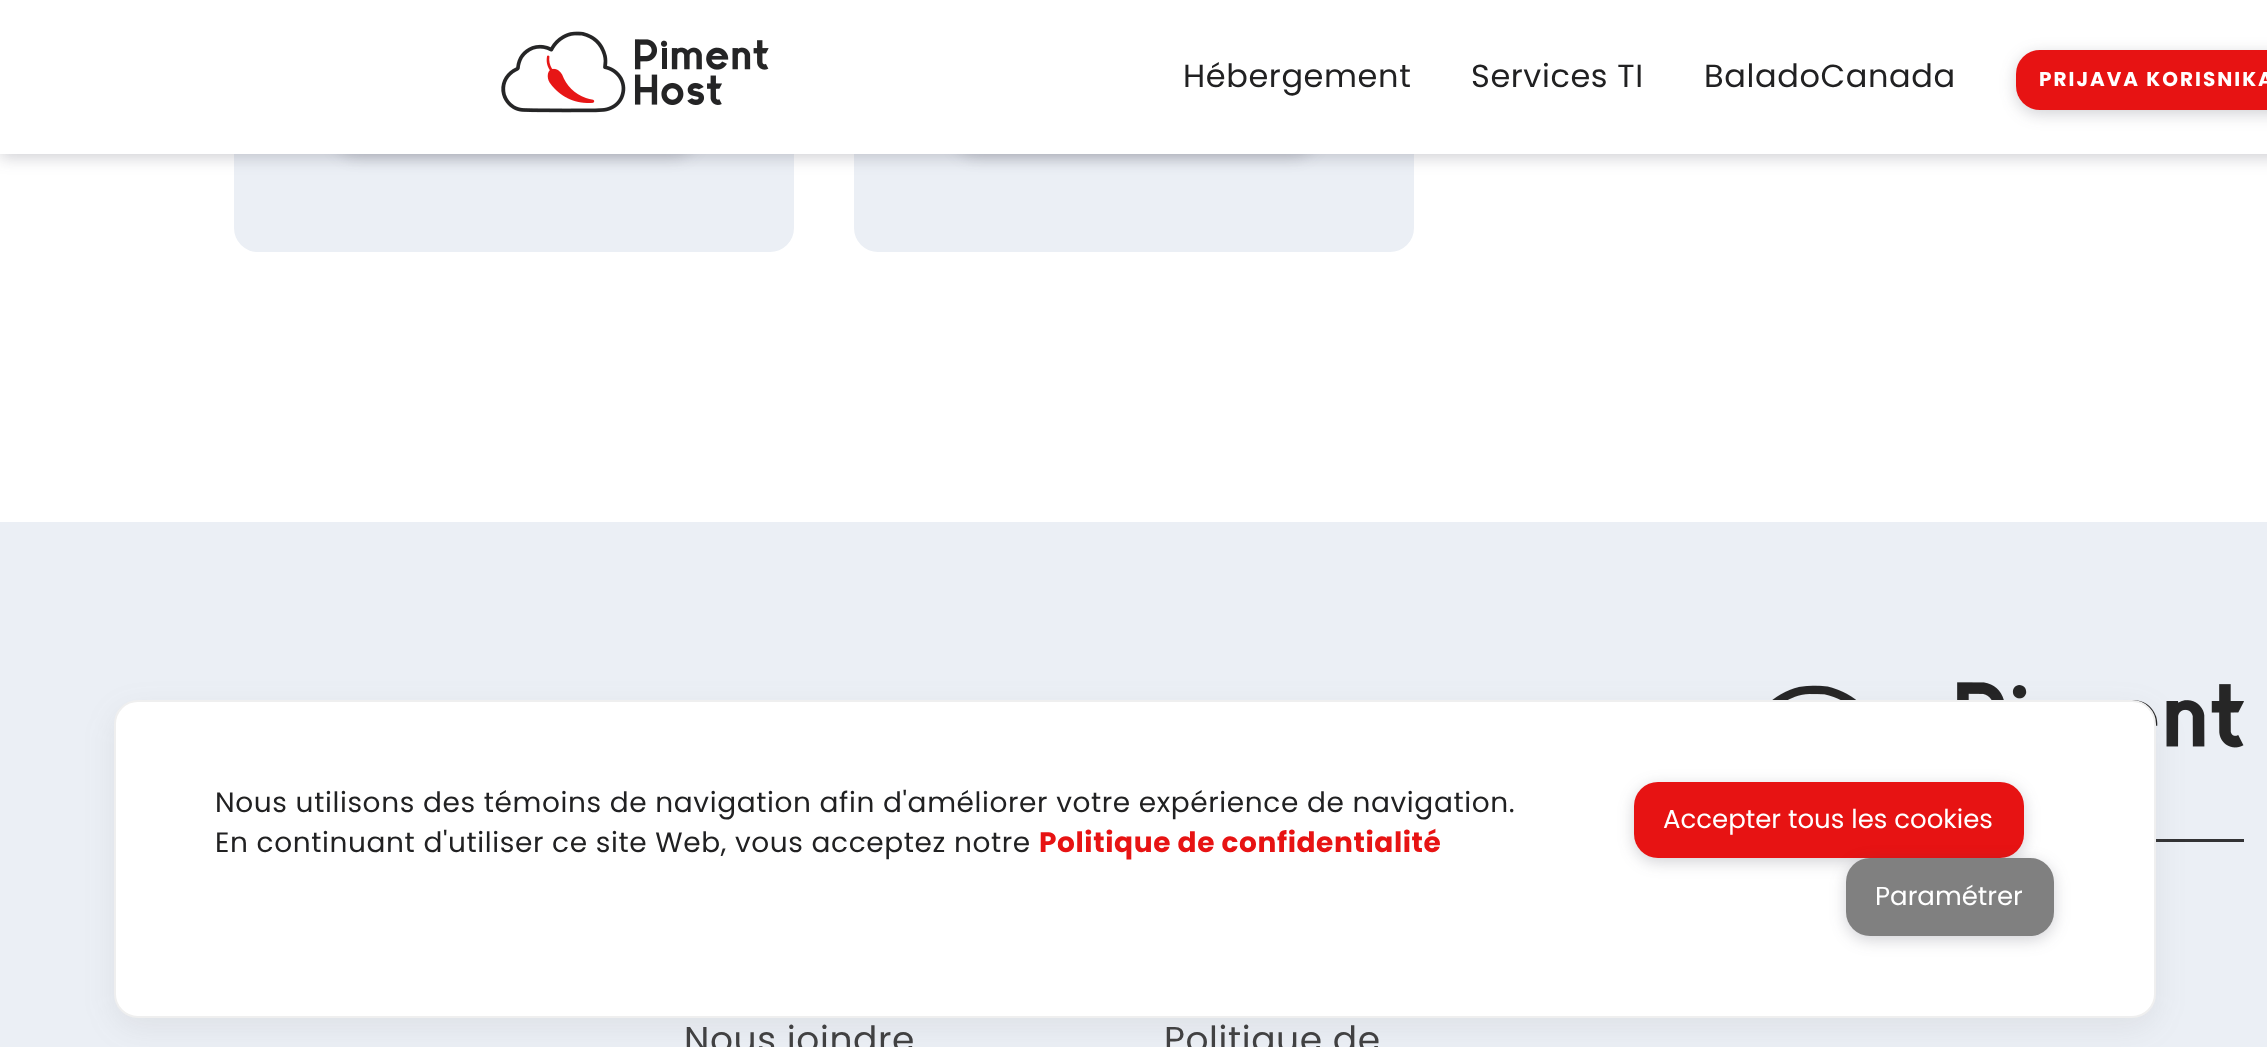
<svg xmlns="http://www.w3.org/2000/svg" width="2267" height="1047">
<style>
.a{font:32px Poppins;letter-spacing:0.6px;fill:#212122}
.b{font:bold 20px Poppins;letter-spacing:2px;fill:#fff}
.c{font:36px Poppins;letter-spacing:0.6px;fill:#414142}
.d{font:28px Poppins;letter-spacing:0.6px;fill:#212122}
.e{font:bold 28px Poppins;letter-spacing:0.6px;fill:#e71313}
.f{font:26px Poppins;fill:#fff}
</style>
<rect width="100%" height="100%" fill="#ebeff5"/>
<path fill="#fff" d="M0 154h2267v368H0z"/>
<rect fill="#ebeff5" x="234" y="-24" width="560" height="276" rx="24"/>
<rect fill="#3e3e4f3b" filter="blur(8px)" x="334" y="50" width="362" height="106" rx="24"/>
<rect fill="#ebeff5" x="854" y="-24" width="560" height="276" rx="24"/>
<rect fill="#3e3e4f3b" filter="blur(8px)" x="954" y="50" width="362" height="106" rx="24"/>
<path fill="#3e3e4f3b" filter="blur(8px)" d="M0 4h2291v154H0z"/>
<path fill="#fff" d="M0 0h2267v154H0z"/>
<image href="1.png" x="501" y="31" width="268" height="82"/>
<rect fill="#3e3e4f3b" filter="blur(8px)" x="2016" y="54" width="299" height="60" rx="24"/>
<rect fill="#e71313" x="2016" y="50" width="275" height="60" rx="24"/>
<image href="2.png" x="1772" y="682" width="472" height="160"/>
<rect fill="#6e6e6e1a" filter="blur(15px)" x="114" y="710" width="2042" height="318" rx="24"/>
<rect fill="#fff" stroke="#efefef" stroke-width="2" x="115" y="701" width="2040" height="316" rx="23"/>
<rect fill="#3e3e4f3b" filter="blur(8px)" x="1634" y="786" width="390" height="76" rx="24"/>
<rect fill="#e71313" x="1634" y="782" width="390" height="76" rx="24"/>
<rect fill="#3e3e4f3b" filter="blur(8px)" x="1846" y="862" width="208" height="78" rx="24"/>
<rect fill="#808080" x="1846" y="858" width="208" height="78" rx="24"/>
<text class="a" x="1183" y="87">Hébergement</text>
<text class="a" x="1471" y="87">Services TI</text>
<text class="a" x="1704" y="87">BaladoCanada</text>
<text class="b" x="2039" y="86">PRIJAVA KORISNIKA</text>
<text class="c" x="684" y="1052">Nous joindre</text>
<text class="c" x="1164" y="1052">Politique de</text>
<text class="d" x="215" y="812">Nous utilisons des témoins de navigation afin d'améliorer votre expérience de navigation.</text>
<text class="d" x="215" y="852">En continuant d'utiliser ce site Web, vous acceptez notre</text>
<text class="e" x="1039" y="852">Politique de confidentialité</text>
<text class="f" x="1663" y="828">Accepter tous les cookies</text>
<text class="f" x="1875" y="905">Paramétrer</text>
</svg>
